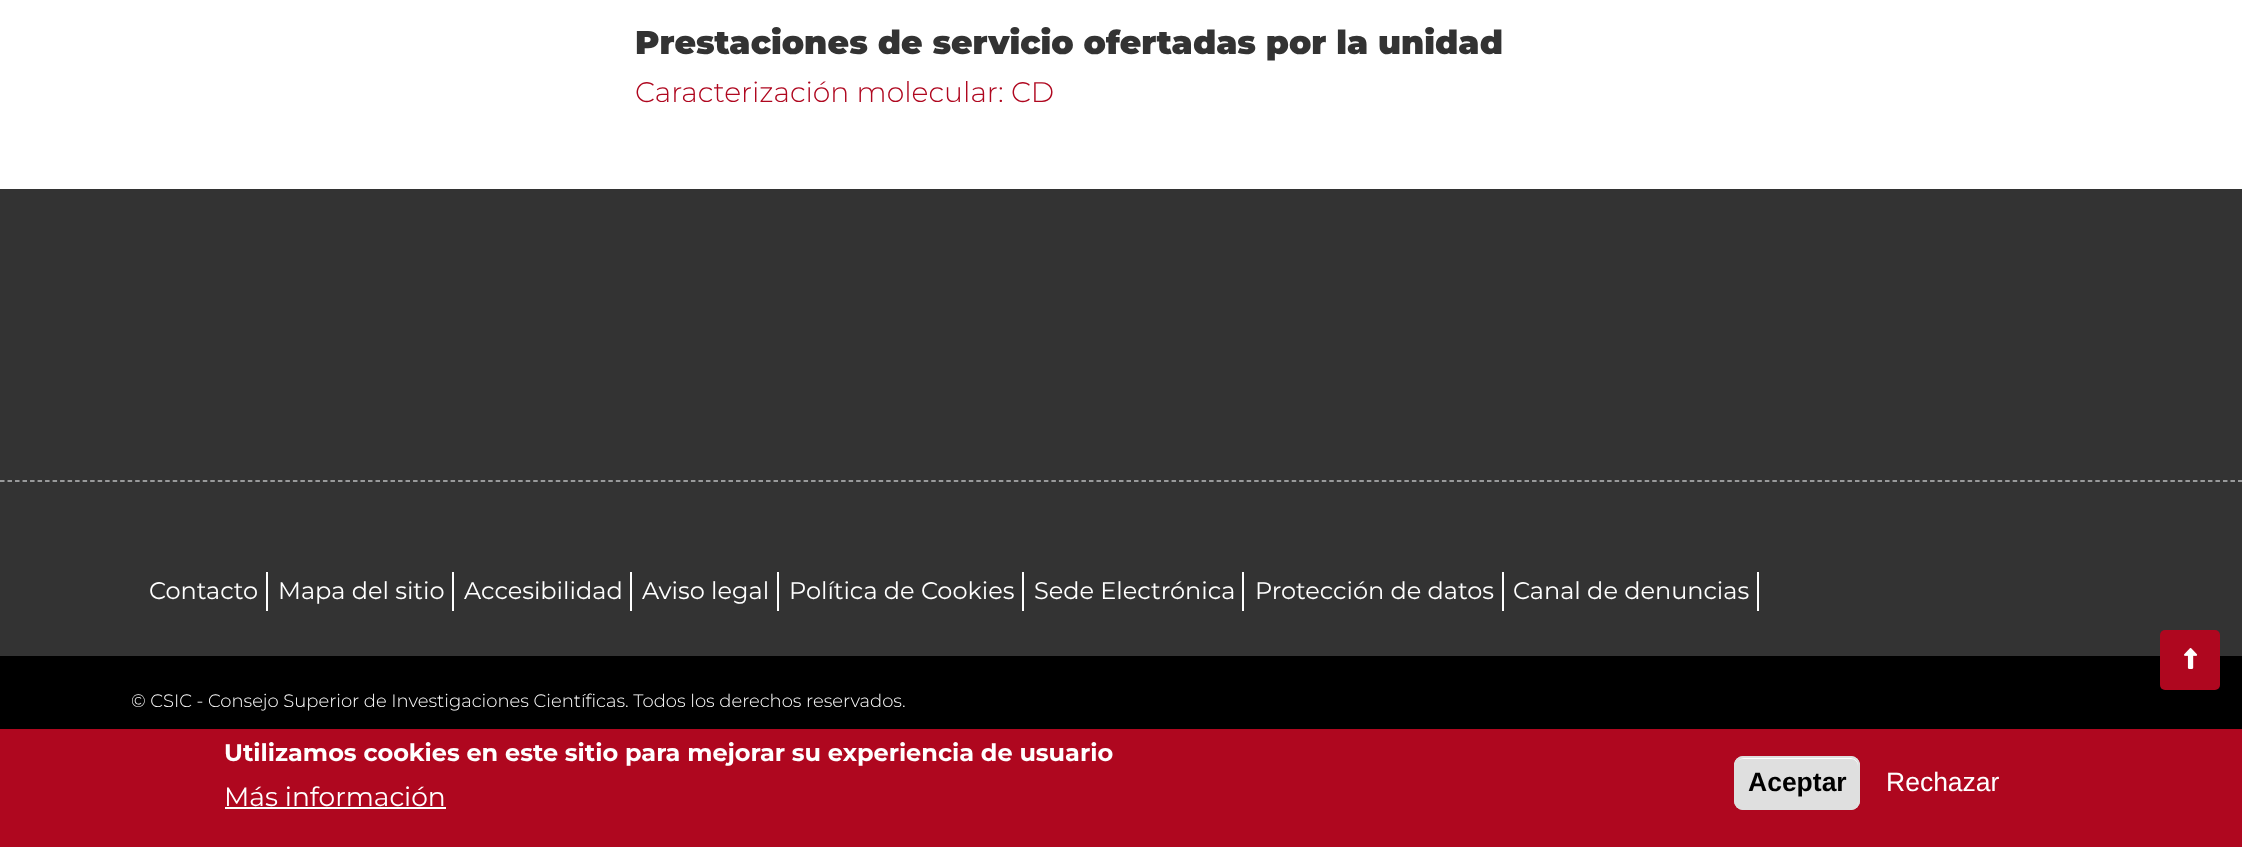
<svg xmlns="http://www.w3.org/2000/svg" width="2242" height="847">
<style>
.a{font:900 33px Montserrat;fill:#333}
.b{font:300 28.25px Montserrat;fill:#af071f}
.c{font:24px Montserrat;fill:#fff}
.d{font:300 18px Montserrat;fill:#fff}
.e{font:bold 24px Montserrat;fill:#fff}
.f{font:26.5px Montserrat;fill:#fff}
.g{font:bold 26.5px Liberation Sans;fill:#000}
.h{font:26.5px Liberation Sans;fill:#fff}
</style>
<rect width="100%" height="100%" fill="#fff"/>
<path fill="#333" d="M0 189h2242v467H0z"/>
<path fill="none" stroke="#bcbdbe" stroke-width="1.5" stroke-dasharray="4.5 3.01" d="M0 481h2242.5"/>
<path fill="#fff" d="M266 572h2v39H266z"/>
<path fill="#fff" d="M452 572h2v39H452z"/>
<path fill="#fff" d="M630 572h2v39H630z"/>
<path fill="#fff" d="M777 572h2v39H777z"/>
<path fill="#fff" d="M1022 572h2v39H1022z"/>
<path fill="#fff" d="M1242 572h2v39H1242z"/>
<path fill="#fff" d="M1502 572h2v39H1502z"/>
<path fill="#fff" d="M1757 572h2v39H1757z"/>
<path fill="#000" d="M0 656h2242v73H0z"/>
<rect fill="#af071f" x="2160" y="630" width="60" height="60" rx="5"/>
<image href="1.png" x="2184" y="648" width="14" height="21"/>
<path fill="#af071f" d="M0 729h2242v118H0z"/>
<path fill="#fff" d="M225 807h221v2H225z"/>
<rect fill="#dfdfdf" x="1734" y="756" width="126" height="54" rx="9"/>
<path fill="#fff" d="M1743 759h108c4 0 7 3 7 7v36l-1 4c1-1 2-3 2-5v-35c0-4-4-8-8-8h-107c-4 0-8 4-8 8c0-4 3-7 7-7z"/>
<rect fill="none" stroke="#dfdfdf" stroke-width="2" x="1735" y="757" width="124" height="52" rx="8"/>
<text class="a" x="635" y="54">Prestaciones de servicio ofertadas por la unidad</text>
<text class="b" x="635" y="102">Caracterización molecular: CD</text>
<text class="c" x="149" y="599">Contacto</text>
<text class="c" x="278" y="599">Mapa del sitio</text>
<text class="c" x="464" y="599">Accesibilidad</text>
<text class="c" x="642" y="599">Aviso legal</text>
<text class="c" x="789" y="599">Política de Cookies</text>
<text class="c" x="1034" y="599">Sede Electrónica</text>
<text class="c" x="1255" y="599">Protección de datos</text>
<text class="c" x="1513" y="599">Canal de denuncias</text>
<text class="d" x="131" y="707">© CSIC - Consejo Superior de Investigaciones Científicas. Todos los derechos reservados.</text>
<text class="e" x="224" y="761">Utilizamos cookies en este sitio para mejorar su experiencia de usuario</text>
<text class="f" x="224" y="806">Más información</text>
<text class="g" x="1748" y="791">Aceptar</text>
<text class="h" x="1886" y="791">Rechazar</text>
</svg>
